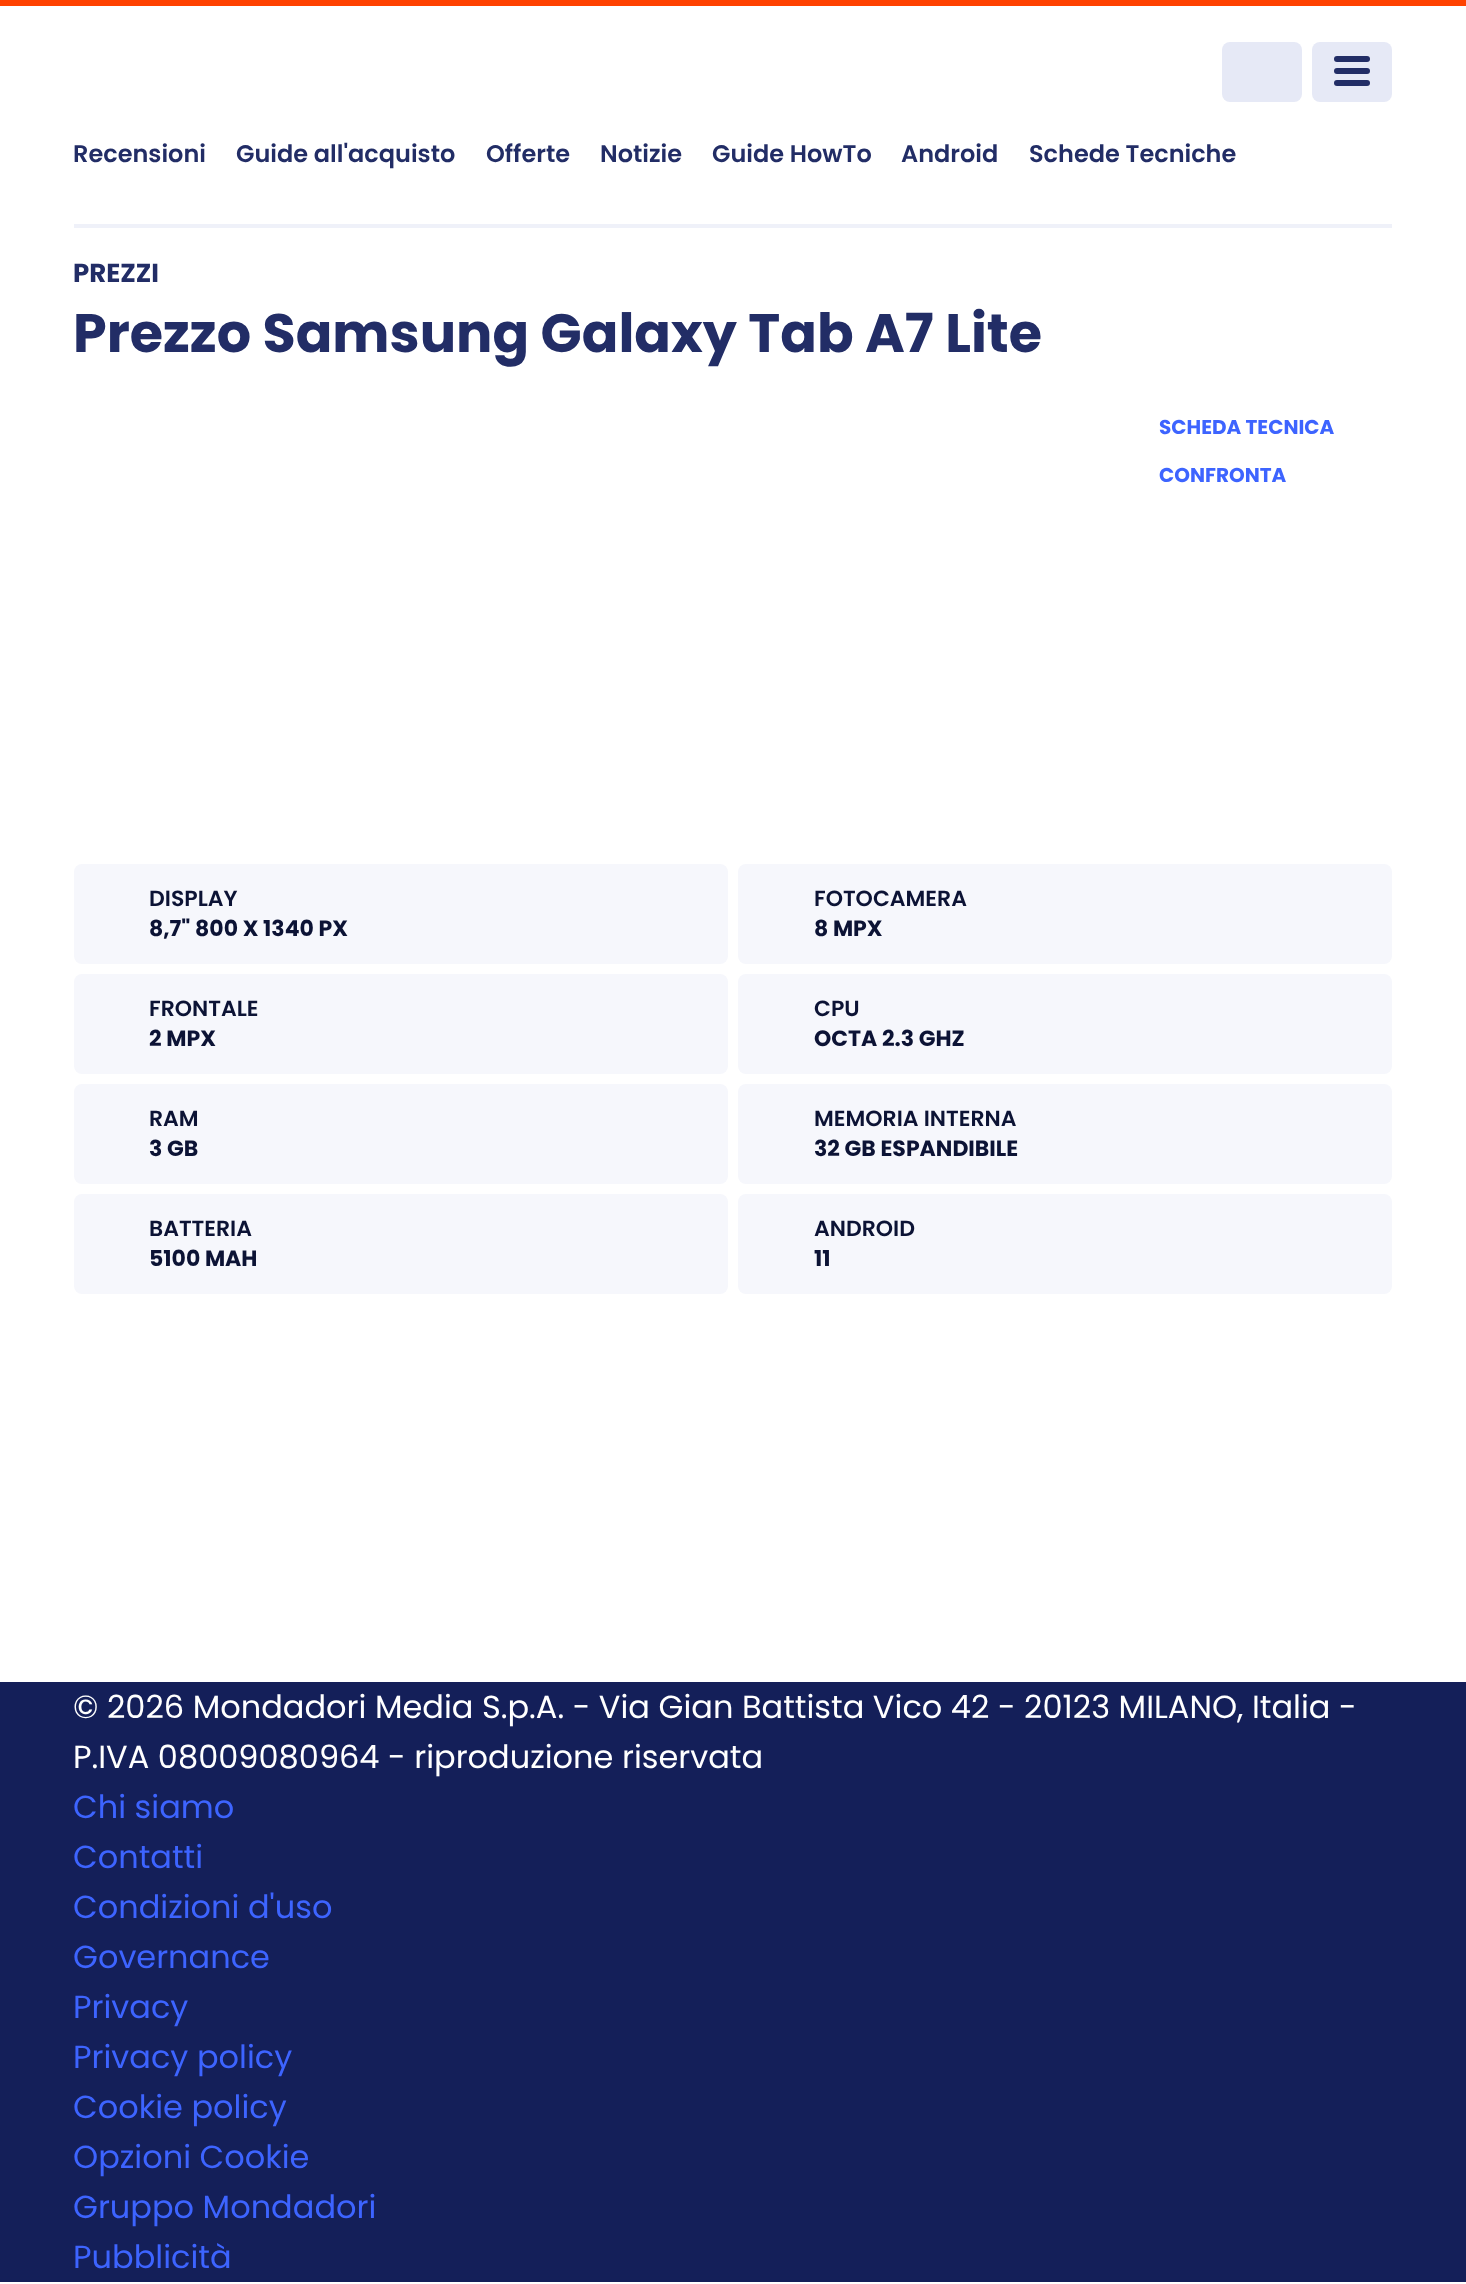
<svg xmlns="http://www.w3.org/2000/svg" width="1466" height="2284">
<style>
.a{font:600 24px Poppins;fill:#222d66}
.b{font:bold 26px Poppins;fill:#222d66}
.c{font:bold 54px Poppins;fill:#222d66}
.d{font:bold 20px Poppins;fill:#3d64ff}
.e{font:600 22px Poppins;fill:#0c1335}
.f{font:bold 22px Poppins;fill:#0c1335}
.g{font:32px Poppins;fill:#fff}
.h{font:32px Poppins;fill:#3d64ff}
</style>
<rect width="100%" height="100%" fill="#fff"/>
<path fill="#ff4200" d="M0 0h1466v6H0z"/>
<rect fill="#e6e9f6" x="1222" y="42" width="80" height="60" rx="8"/>
<rect fill="#e6e9f6" x="1312" y="42" width="80" height="60" rx="8"/>
<rect fill="#222d66" x="1334" y="56" width="36" height="6" rx="3"/>
<rect fill="#222d66" x="1334" y="68" width="36" height="6" rx="3"/>
<rect fill="#222d66" x="1334" y="80" width="36" height="6" rx="3"/>
<path fill="#eff1f9" d="M74 224h1318v4H74z"/>
<rect fill="#f6f7fc" x="74" y="864" width="654" height="100" rx="8"/>
<rect fill="#f6f7fc" x="738" y="864" width="654" height="100" rx="8"/>
<rect fill="#f6f7fc" x="74" y="974" width="654" height="100" rx="8"/>
<rect fill="#f6f7fc" x="738" y="974" width="654" height="100" rx="8"/>
<rect fill="#f6f7fc" x="74" y="1084" width="654" height="100" rx="8"/>
<rect fill="#f6f7fc" x="738" y="1084" width="654" height="100" rx="8"/>
<rect fill="#f6f7fc" x="74" y="1194" width="654" height="100" rx="8"/>
<rect fill="#f6f7fc" x="738" y="1194" width="654" height="100" rx="8"/>
<path fill="#141f59" d="M0 1682h1466v600H0z"/>
<text class="a" x="73" y="162">Recensioni</text>
<text class="a" x="236" y="162">Guide all'acquisto</text>
<text class="a" x="486" y="162">Offerte</text>
<text class="a" x="600" y="162">Notizie</text>
<text class="a" x="712" y="162">Guide HowTo</text>
<text class="a" x="901" y="162">Android</text>
<text class="a" x="1029" y="162">Schede Tecniche</text>
<text class="b" x="73" y="282">PREZZI</text>
<text class="c" x="73" y="352">Prezzo Samsung Galaxy Tab A7 Lite</text>
<text class="d" x="1159" y="434">SCHEDA TECNICA</text>
<text class="d" x="1159" y="482">CONFRONTA</text>
<text class="e" x="149" y="906">DISPLAY</text>
<text class="f" x="149" y="936">8,7" 800 X 1340 PX</text>
<text class="e" x="814" y="906">FOTOCAMERA</text>
<text class="f" x="814" y="936">8 MPX</text>
<text class="e" x="149" y="1016">FRONTALE</text>
<text class="f" x="149" y="1046">2 MPX</text>
<text class="e" x="814" y="1016">CPU</text>
<text class="f" x="814" y="1046">OCTA 2.3 GHZ</text>
<text class="e" x="149" y="1126">RAM</text>
<text class="f" x="149" y="1156">3 GB</text>
<text class="e" x="814" y="1126">MEMORIA INTERNA</text>
<text class="f" x="814" y="1156">32 GB ESPANDIBILE</text>
<text class="e" x="149" y="1236">BATTERIA</text>
<text class="f" x="149" y="1266">5100 MAH</text>
<text class="e" x="814" y="1236">ANDROID</text>
<text class="f" x="814" y="1266">11</text>
<text class="g" x="73" y="1718">© 2026 Mondadori Media S.p.A. - Via Gian Battista Vico 42 - 20123 MILANO, Italia -</text>
<text class="g" x="73" y="1768">P.IVA 08009080964 - riproduzione riservata</text>
<text class="h" x="73" y="1818">Chi siamo</text>
<text class="h" x="73" y="1868">Contatti</text>
<text class="h" x="73" y="1918">Condizioni d'uso</text>
<text class="h" x="73" y="1968">Governance</text>
<text class="h" x="73" y="2018">Privacy</text>
<text class="h" x="73" y="2068">Privacy policy</text>
<text class="h" x="73" y="2118">Cookie policy</text>
<text class="h" x="73" y="2168">Opzioni Cookie</text>
<text class="h" x="73" y="2218">Gruppo Mondadori</text>
<text class="h" x="73" y="2268">Pubblicità</text>
</svg>
